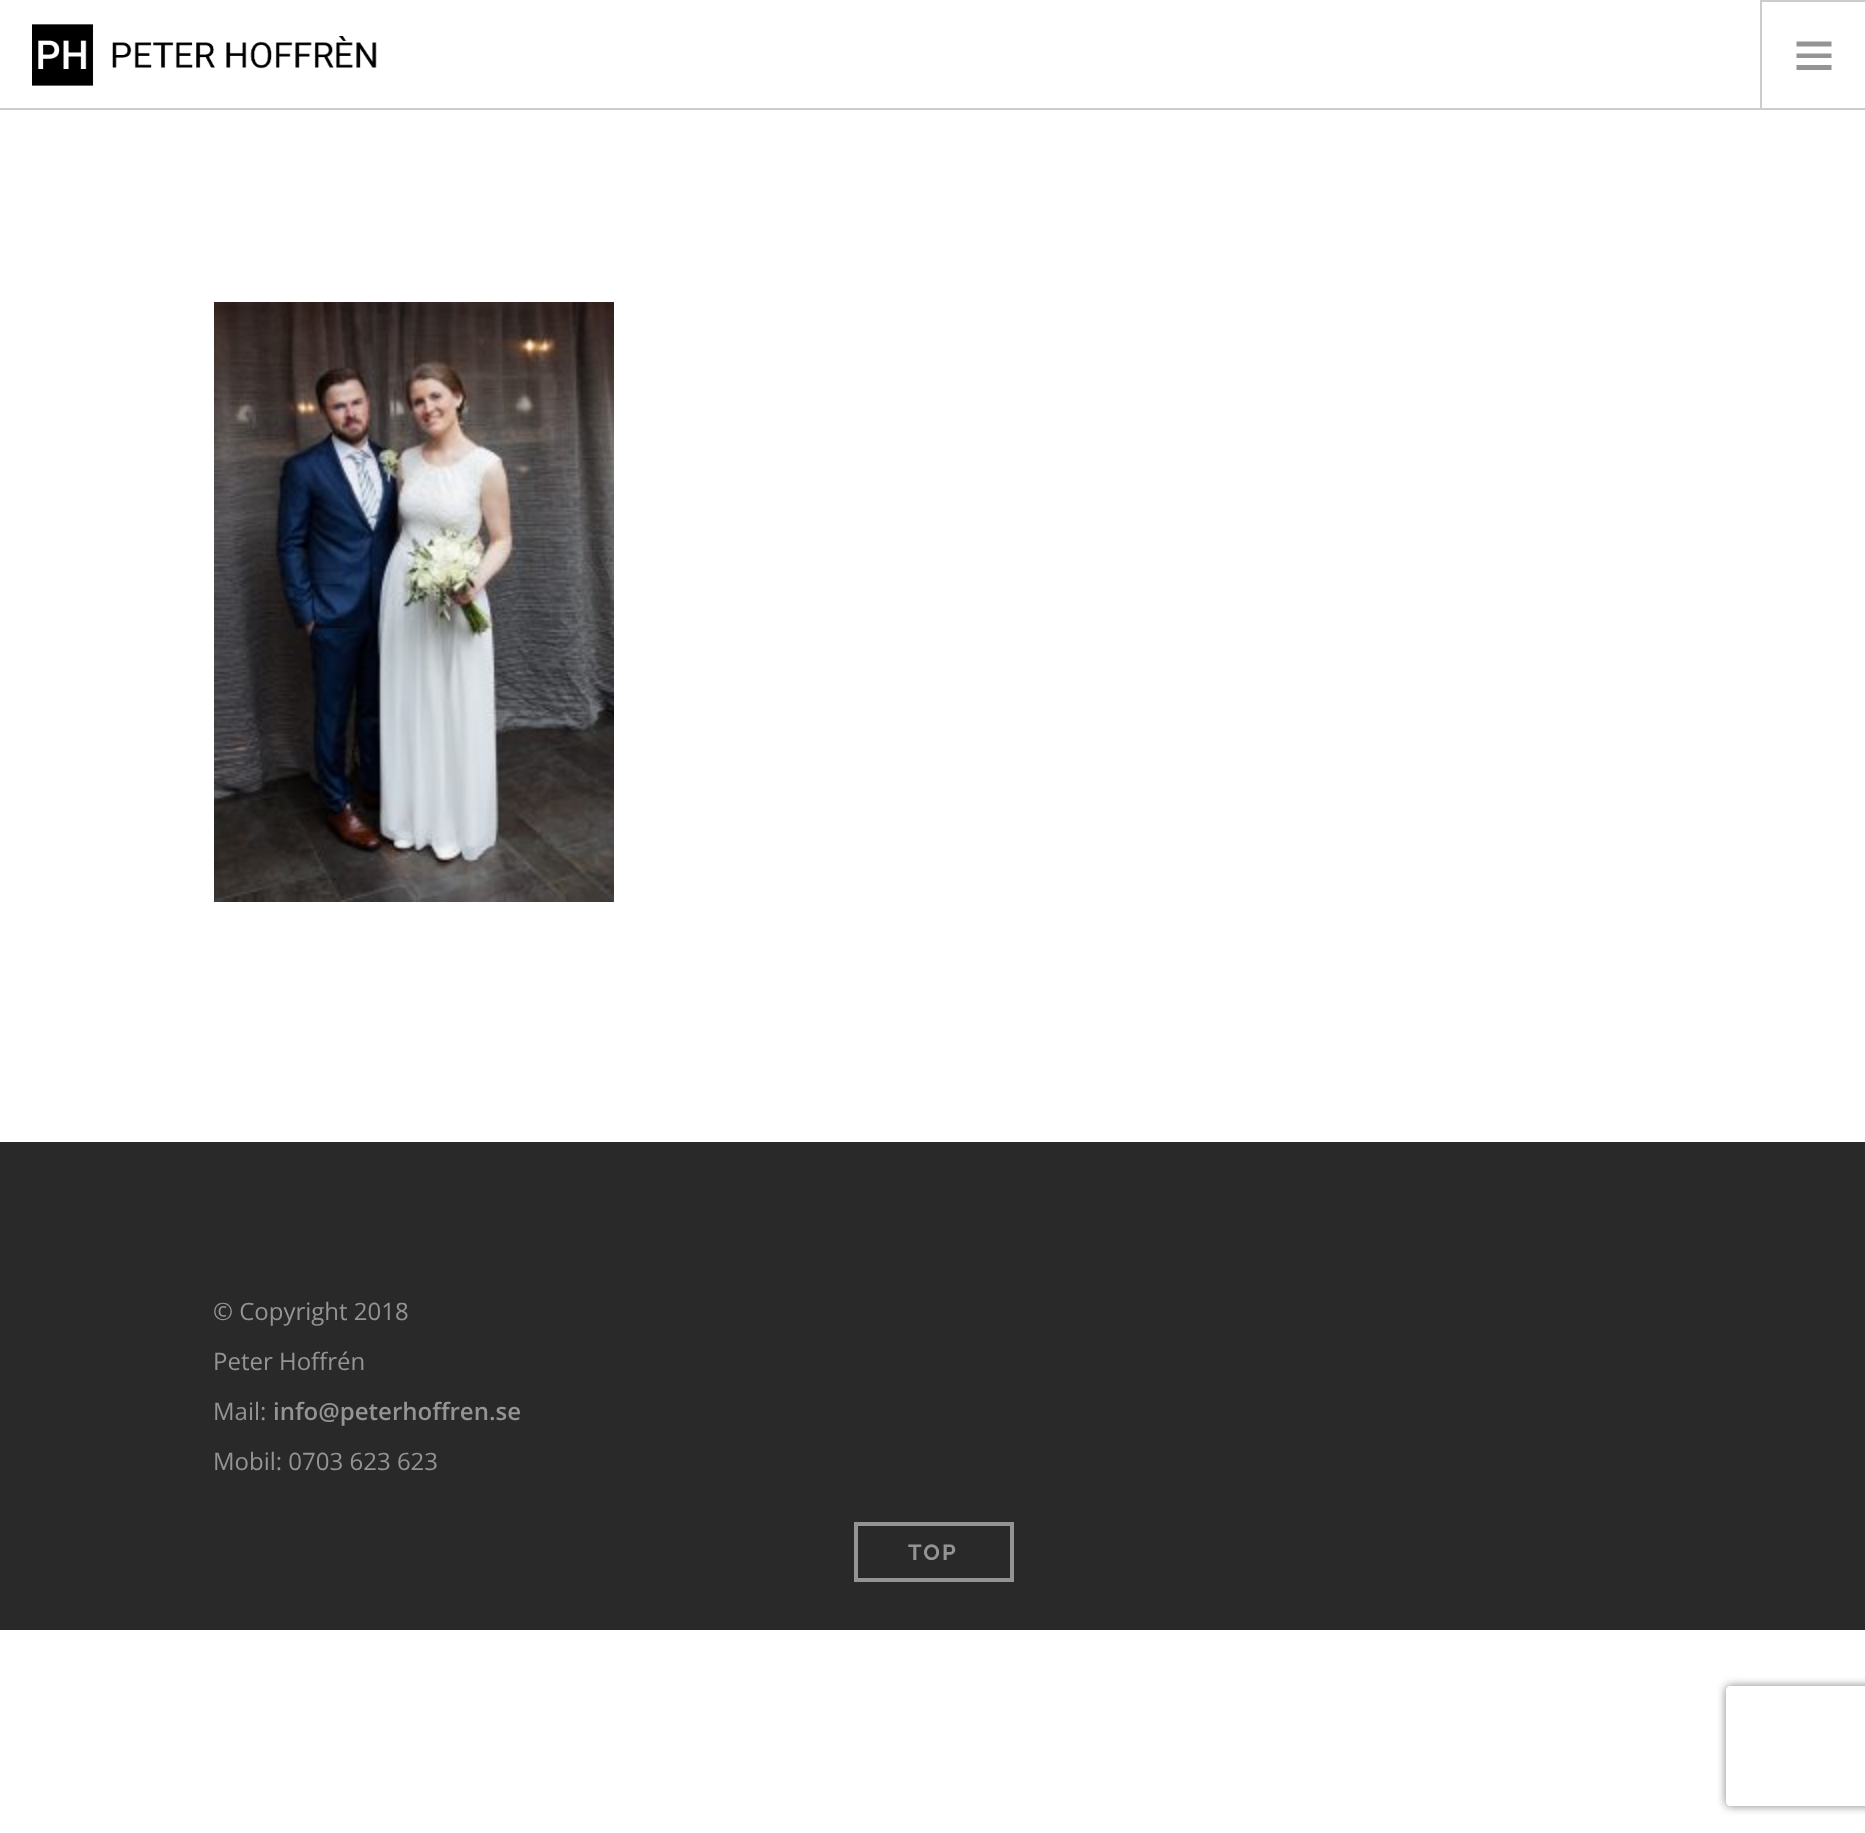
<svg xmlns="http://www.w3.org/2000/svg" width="1865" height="1833">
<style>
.a{font:24px Open Sans;fill:#949494}
.b{font:600 24px Open Sans;fill:#949494}
.c{font:bold 22px Raleway;letter-spacing:2px;fill:#949494}
</style>
<defs>
<clipPath id="clip1"><path d="M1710 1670h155v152h-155zm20 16h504c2 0 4 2 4 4v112c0 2-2 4-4 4h-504c-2 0-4-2-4-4v-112c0-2 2-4 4-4z" clip-rule="evenodd"/></clipPath>
</defs>
<rect width="100%" height="100%" fill="#fff"/>
<path fill="#ccc" d="M0 108h1865v2H0z"/>
<image href="1.png" x="32" y="24" width="345" height="62"/>
<path fill="#ccc" d="M1760 0h105v2H1760z"/>
<path fill="#ccc" d="M1760 0h2v108H1760z"/>
<path fill="#949494" d="M1831.5 41.5v5h-35v-5zm-35 16.5h35v-4.5h-35zm0 12h35v-5h-35z"/>
<image href="2.png" x="214" y="302" width="400" height="600"/>
<path fill="#292929" d="M0 1142h1865v488H0z"/>
<path fill="none" stroke="#949494" stroke-width="4" d="M856 1524h156v56H856z"/>
<g clip-path="url(#clip1)">
<rect fill="#808080" filter="blur(5px)" x="1726" y="1686" width="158" height="120" rx="4"/>
</g>
<text class="a" x="213" y="1320">© Copyright 2018</text>
<text class="a" x="213" y="1370">Peter Hoffrén</text>
<text class="a" x="213" y="1420">Mail:</text>
<text class="b" x="273" y="1420">info@peterhoffren.se</text>
<text class="a" x="213" y="1470">Mobil: 0703 623 623</text>
<text class="c" x="908" y="1560">TOP</text>
</svg>
